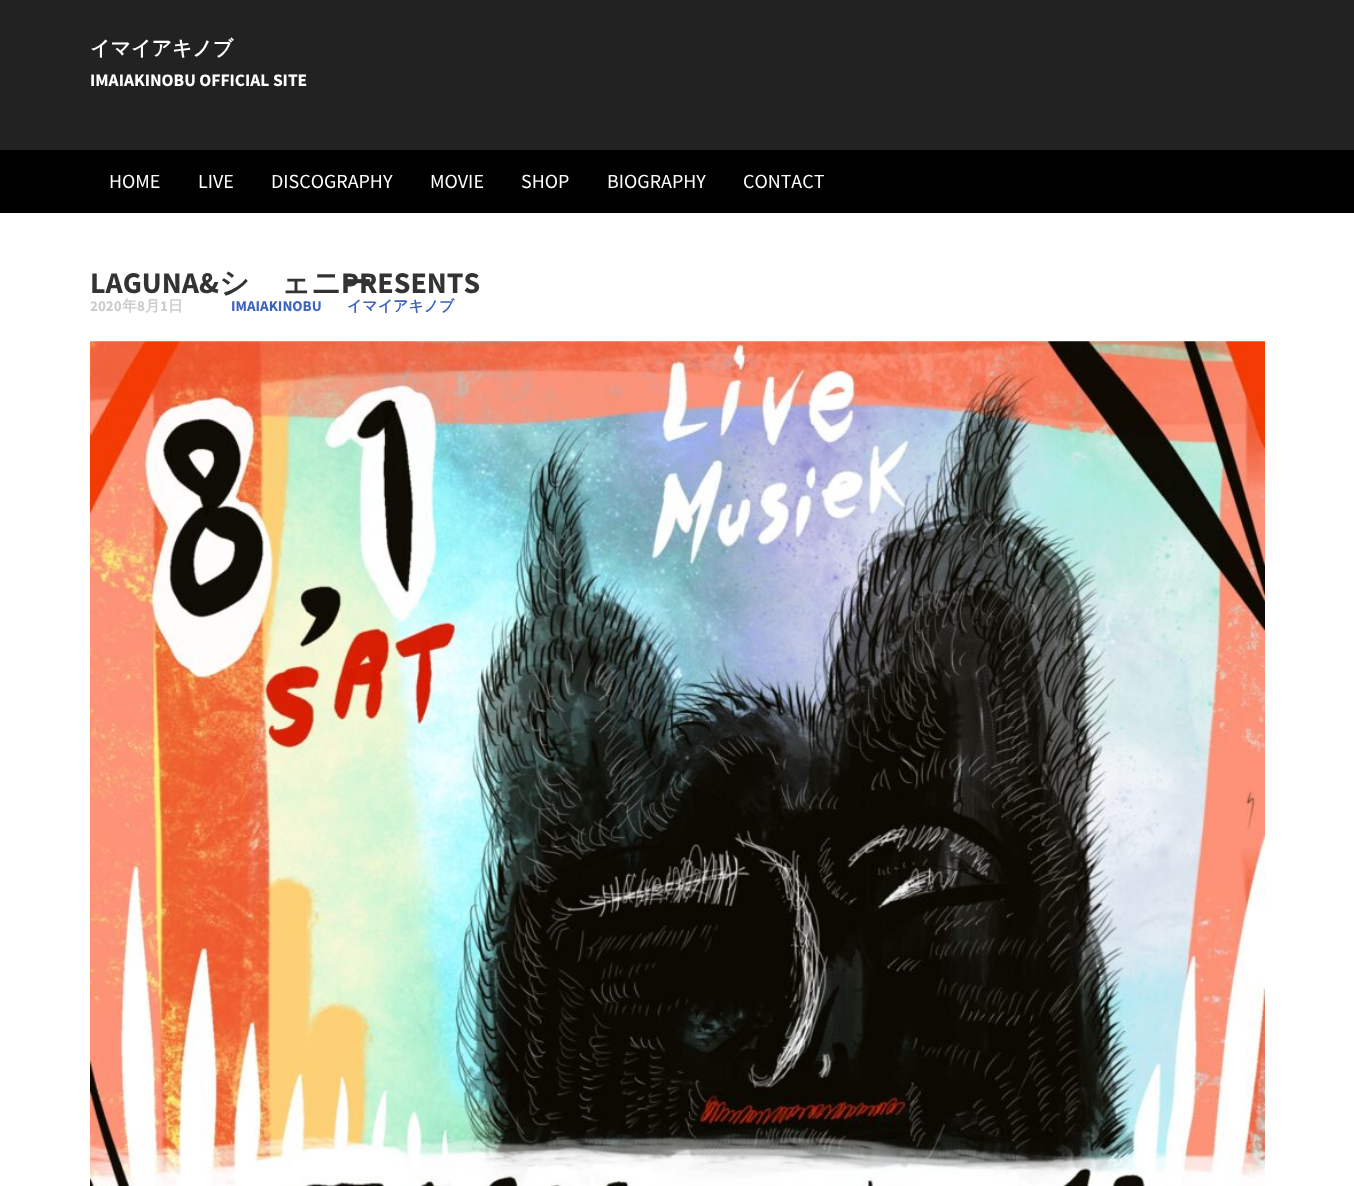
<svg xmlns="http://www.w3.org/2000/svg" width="1354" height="1186">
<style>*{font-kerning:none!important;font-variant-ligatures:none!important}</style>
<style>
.a{font:bold 20px WenQuanYi Zen Hei;fill:#fff}
.b{font:bold 17.5px Source Sans Pro;fill:#fff}
.c{font:20px Source Sans Pro;fill:#fff}
.d{font:bold 30px Source Sans Pro;fill:#333}
.e{font:bold 30px WenQuanYi Zen Hei;fill:#333}
.f{font:bold 15px Source Sans Pro;fill:#ccc}
.g{font:bold 15px WenQuanYi Zen Hei;fill:#ccc}
.h{font:bold 15px Source Sans Pro;fill:#3c64be}
.i{font:bold 15px WenQuanYi Zen Hei;fill:#3c64be}
</style>
<rect width="100%" height="100%" fill="#fff"/>
<path fill="#222" d="M0 0h1354v150H0z"/>
<path fill="#000" d="M0 150h1354v63H0z"/>
<image href="1.png" x="90" y="341" width="1175" height="845"/>
<text class="a" x="90" y="55">イマイアキノブ</text>
<text class="b" x="90" y="86">IMAIAKINOBU OFFICIAL SITE</text>
<text class="c" x="109" y="188">HOME</text>
<text class="c" x="198" y="188">LIVE</text>
<text class="c" x="271" y="188">DISCOGRAPHY</text>
<text class="c" x="430" y="188">MOVIE</text>
<text class="c" x="521" y="188">SHOP</text>
<text class="c" x="607" y="188">BIOGRAPHY</text>
<text class="c" x="743" y="188">CONTACT</text>
<text class="d" x="90" y="293">LAGUNA&amp;</text>
<text class="e" x="219" y="293">ジェニー</text>
<text class="d" x="341" y="293">PRESENTS</text>
<text class="f" x="90" y="311">2020</text>
<text class="g" x="122" y="311">年</text>
<text class="f" x="137" y="311">8</text>
<text class="g" x="145" y="311">月</text>
<text class="f" x="160" y="311">1</text>
<text class="g" x="168" y="311">日</text>
<text class="h" x="231" y="311">IMAIAKINOBU</text>
<text class="i" x="347" y="311">イマイアキノブ</text>
</svg>
